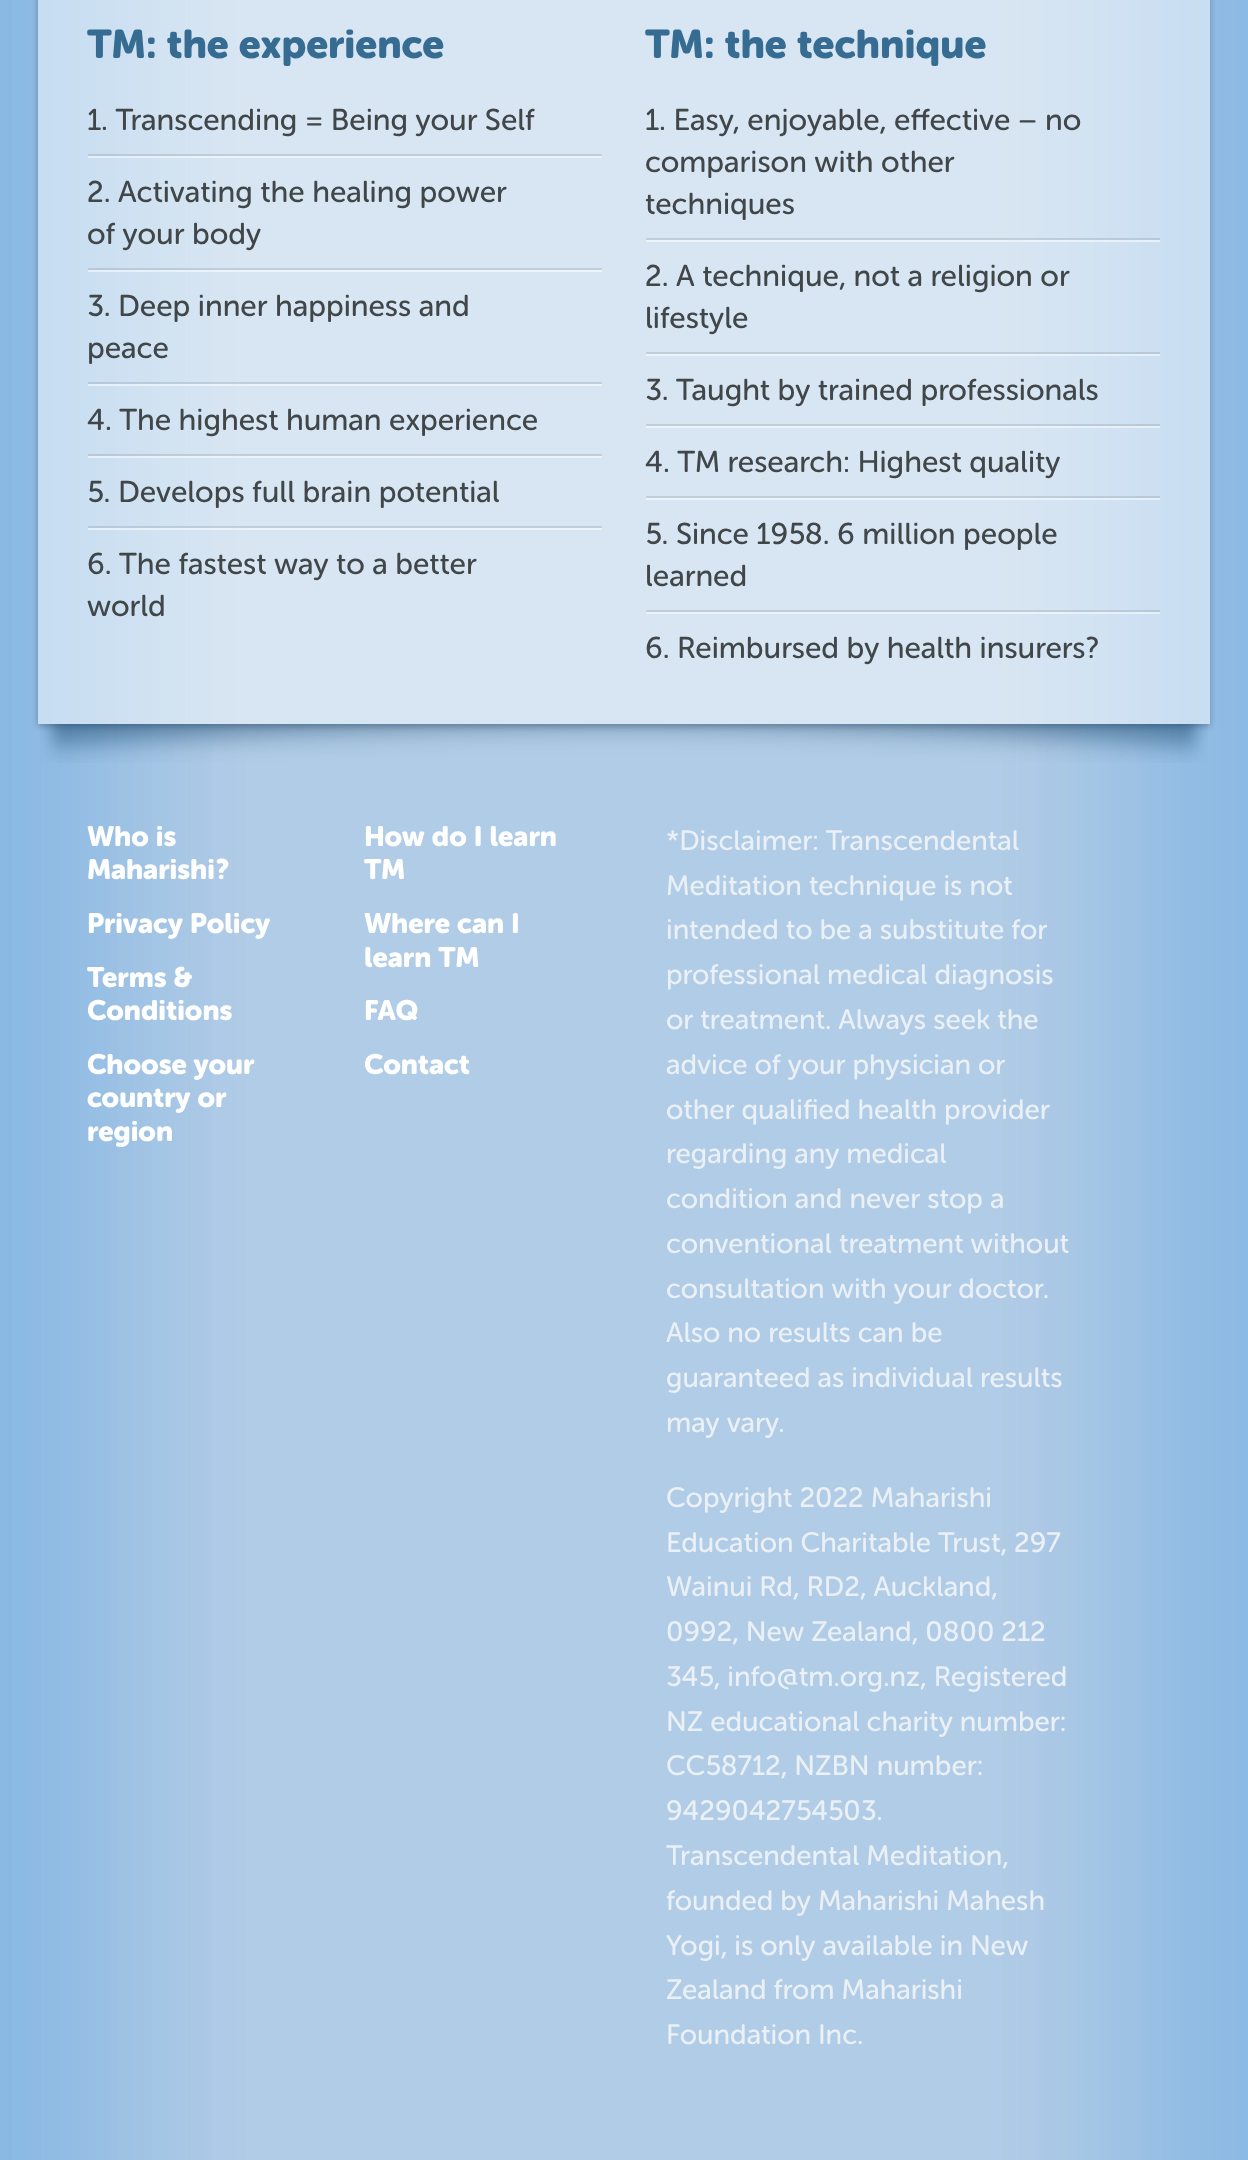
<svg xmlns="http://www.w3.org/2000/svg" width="1248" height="2160">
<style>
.a{font:bold 40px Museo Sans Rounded;fill:#366c92}
.b{font:30px Museo Sans Rounded;fill:#414649}
.c{font:bold 28px Museo Sans Rounded;fill:#fff}
.d{font:28px Museo Sans Rounded;fill:#eaf0f5}
</style>
<defs>
<clipPath id="clip1"><path d="M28 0h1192v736h-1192zm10-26h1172v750h-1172z" clip-rule="evenodd"/></clipPath>
</defs>
<rect width="100%" height="100%" fill="#fff"/>
<image href="1.png" x="0" y="0" width="1248" height="2160"/>
<g clip-path="url(#clip1)">
<path fill="#00000040" filter="blur(3px)" d="M38 -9h1172v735H38z"/>
</g>
<path fill="#ffffff80" d="M38 0h1172v724H38z"/>
<path fill="#ffffff80" d="M88 156h514v2H88z"/>
<path fill="#0000001a" d="M88 154h514v2H88z"/>
<path fill="#ffffff80" d="M88 270h514v2H88z"/>
<path fill="#0000001a" d="M88 268h514v2H88z"/>
<path fill="#ffffff80" d="M88 384h514v2H88z"/>
<path fill="#0000001a" d="M88 382h514v2H88z"/>
<path fill="#ffffff80" d="M88 456h514v2H88z"/>
<path fill="#0000001a" d="M88 454h514v2H88z"/>
<path fill="#ffffff80" d="M88 528h514v2H88z"/>
<path fill="#0000001a" d="M88 526h514v2H88z"/>
<path fill="#ffffff80" d="M646 240h514v2H646z"/>
<path fill="#0000001a" d="M646 238h514v2H646z"/>
<path fill="#ffffff80" d="M646 354h514v2H646z"/>
<path fill="#0000001a" d="M646 352h514v2H646z"/>
<path fill="#ffffff80" d="M646 426h514v2H646z"/>
<path fill="#0000001a" d="M646 424h514v2H646z"/>
<path fill="#ffffff80" d="M646 498h514v2H646z"/>
<path fill="#0000001a" d="M646 496h514v2H646z"/>
<path fill="#ffffff80" d="M646 612h514v2H646z"/>
<path fill="#0000001a" d="M646 610h514v2H646z"/>
<image href="2.png" x="40" y="724" width="1168" height="39"/>
<text class="a" x="87" y="58">TM: the experience</text>
<text class="b" x="87" y="130">1. Transcending = Being your Self</text>
<text class="b" x="87" y="202">2. Activating the healing power</text>
<text class="b" x="87" y="244">of your body</text>
<text class="b" x="87" y="316">3. Deep inner happiness and</text>
<text class="b" x="87" y="358">peace</text>
<text class="b" x="87" y="430">4. The highest human experience</text>
<text class="b" x="87" y="502">5. Develops full brain potential</text>
<text class="b" x="87" y="574">6. The fastest way to a better</text>
<text class="b" x="87" y="616">world</text>
<text class="a" x="645" y="58">TM: the technique</text>
<text class="b" x="645" y="130">1. Easy, enjoyable, effective – no</text>
<text class="b" x="645" y="172">comparison with other</text>
<text class="b" x="645" y="214">techniques</text>
<text class="b" x="645" y="286">2. A technique, not a religion or</text>
<text class="b" x="645" y="328">lifestyle</text>
<text class="b" x="645" y="400">3. Taught by trained professionals</text>
<text class="b" x="645" y="472">4. TM research: Highest quality</text>
<text class="b" x="645" y="544">5. Since 1958. 6 million people</text>
<text class="b" x="645" y="586">learned</text>
<text class="b" x="645" y="658">6. Reimbursed by health insurers?</text>
<text class="c" x="87" y="846">Who is</text>
<text class="c" x="87" y="879">Maharishi?</text>
<text class="c" x="87" y="933">Privacy Policy</text>
<text class="c" x="87" y="987">Terms &amp;</text>
<text class="c" x="87" y="1020">Conditions</text>
<text class="c" x="87" y="1074">Choose your</text>
<text class="c" x="87" y="1107">country or</text>
<text class="c" x="87" y="1141">region</text>
<text class="c" x="364" y="846">How do I learn</text>
<text class="c" x="364" y="879">TM</text>
<text class="c" x="364" y="933">Where can I</text>
<text class="c" x="364" y="967">learn TM</text>
<text class="c" x="364" y="1020">FAQ</text>
<text class="c" x="364" y="1074">Contact</text>
<text class="d" x="666" y="850">*Disclaimer: Transcendental</text>
<text class="d" x="666" y="895">Meditation technique is not</text>
<text class="d" x="666" y="939">intended to be a substitute for</text>
<text class="d" x="666" y="984">professional medical diagnosis</text>
<text class="d" x="666" y="1029">or treatment. Always seek the</text>
<text class="d" x="666" y="1074">advice of your physician or</text>
<text class="d" x="666" y="1119">other qualified health provider</text>
<text class="d" x="666" y="1163">regarding any medical</text>
<text class="d" x="666" y="1208">condition and never stop a</text>
<text class="d" x="666" y="1253">conventional treatment without</text>
<text class="d" x="666" y="1298">consultation with your doctor.</text>
<text class="d" x="666" y="1342">Also no results can be</text>
<text class="d" x="666" y="1387">guaranteed as individual results</text>
<text class="d" x="666" y="1432">may vary.</text>
<text class="d" x="666" y="1507">Copyright 2022 Maharishi</text>
<text class="d" x="666" y="1552">Education Charitable Trust, 297</text>
<text class="d" x="666" y="1596">Wainui Rd, RD2, Auckland,</text>
<text class="d" x="666" y="1641">0992, New Zealand, 0800 212</text>
<text class="d" x="666" y="1686">345, info@tm.org.nz, Registered</text>
<text class="d" x="666" y="1731">NZ educational charity number:</text>
<text class="d" x="666" y="1775">CC58712, NZBN number:</text>
<text class="d" x="666" y="1820">9429042754503.</text>
<text class="d" x="666" y="1865">Transcendental Meditation,</text>
<text class="d" x="666" y="1910">founded by Maharishi Mahesh</text>
<text class="d" x="666" y="1955">Yogi, is only available in New</text>
<text class="d" x="666" y="1999">Zealand from Maharishi</text>
<text class="d" x="666" y="2044">Foundation Inc.</text>
</svg>
